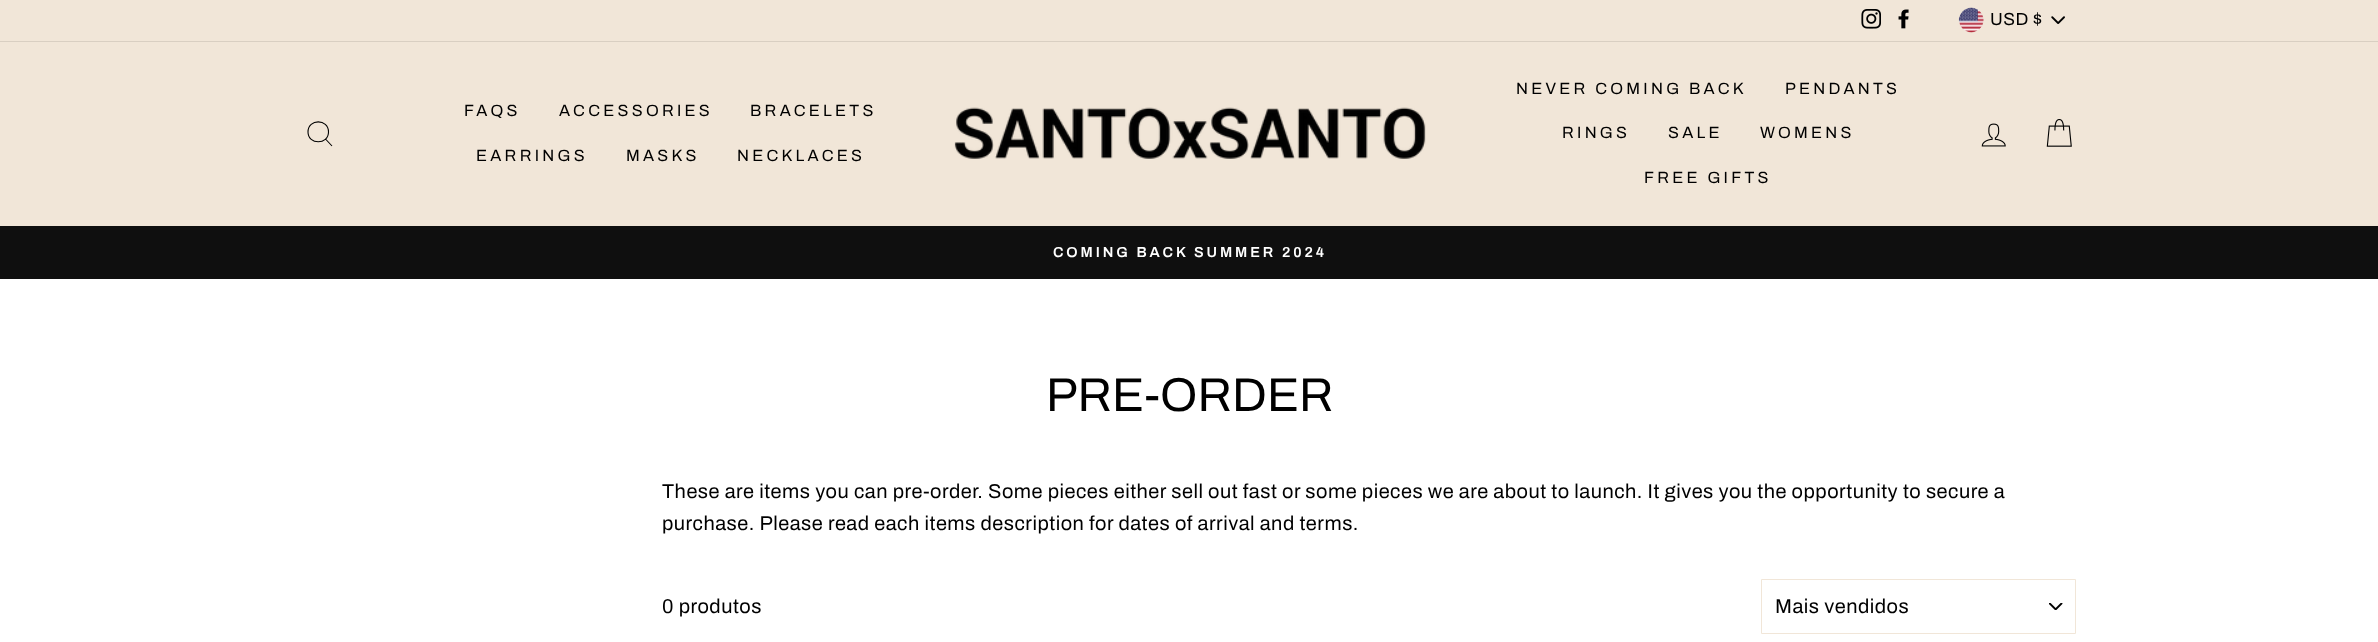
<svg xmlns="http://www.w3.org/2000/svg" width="2378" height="642">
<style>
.a{font:17.5px Archivo;letter-spacing:0.5px;fill:#000}
.b{font:16.25px Archivo;letter-spacing:3.25px;fill:#000}
.c{font:600 14.5px Archivo;letter-spacing:2.9px;fill:#fff}
.d{font:47.5px Archivo;fill:#000}
.e{font:20px Archivo;letter-spacing:0.5px;fill:#000}
</style>
<rect width="100%" height="100%" fill="#fff"/>
<path fill="#f1e6d8" d="M0 0h2378v41H0z"/>
<image href="1.png" x="1861" y="9" width="20" height="20"/>
<image href="2.png" x="1898" y="9" width="11" height="20"/>
<image href="3.png" x="2051" y="16" width="14" height="8"/>
<image href="4.png" x="1958" y="7" width="26" height="26"/>
<path fill="#f1e6d8" d="M0 42h2378v184H0z"/>
<path fill="#d9cfc2" d="M0 41h2378v1H0z"/>
<path fill="none" stroke="#000" stroke-width="1.1" d="M328.5 132c0 13-20.5 13-20.5 0c0-13.5 20.5-13.5 20.5 0zm3.5 14l-6.5-7"/>
<image href="5.png" x="954" y="107" width="472" height="52"/>
<image href="6.png" x="1981" y="123" width="25" height="24"/>
<image href="7.png" x="2046" y="119" width="26" height="28"/>
<path fill="#0f0f0f" d="M0 226h2378v53H0z"/>
<image href="8.png" x="2049" y="603" width="14" height="7"/>
<path fill="none" stroke="#f1e6d8" d="M1761.5 579.5h314v54H1761.5z"/>
<text class="a" x="1990" y="25">USD $</text>
<text class="b" x="464" y="116">FAQS</text>
<text class="b" x="559" y="116">ACCESSORIES</text>
<text class="b" x="750" y="116">BRACELETS</text>
<text class="b" x="476" y="161">EARRINGS</text>
<text class="b" x="626" y="161">MASKS</text>
<text class="b" x="737" y="161">NECKLACES</text>
<text class="b" x="1516" y="94">NEVER COMING BACK</text>
<text class="b" x="1785" y="94">PENDANTS</text>
<text class="b" x="1562" y="138">RINGS</text>
<text class="b" x="1668" y="138">SALE</text>
<text class="b" x="1760" y="138">WOMENS</text>
<text class="b" x="1644" y="183">FREE GIFTS</text>
<text class="c" x="1053" y="257">COMING BACK SUMMER 2024</text>
<text class="d" x="1046" y="411">PRE-ORDER</text>
<text class="e" x="662" y="498">These are items you can pre-order. Some pieces either sell out fast or some pieces we are about to launch. It gives you the opportunity to secure a</text>
<text class="e" x="662" y="530">purchase. Please read each items description for dates of arrival and terms.</text>
<text class="e" x="662" y="613">0 produtos</text>
<text class="e" x="1775" y="613">Mais vendidos</text>
</svg>
